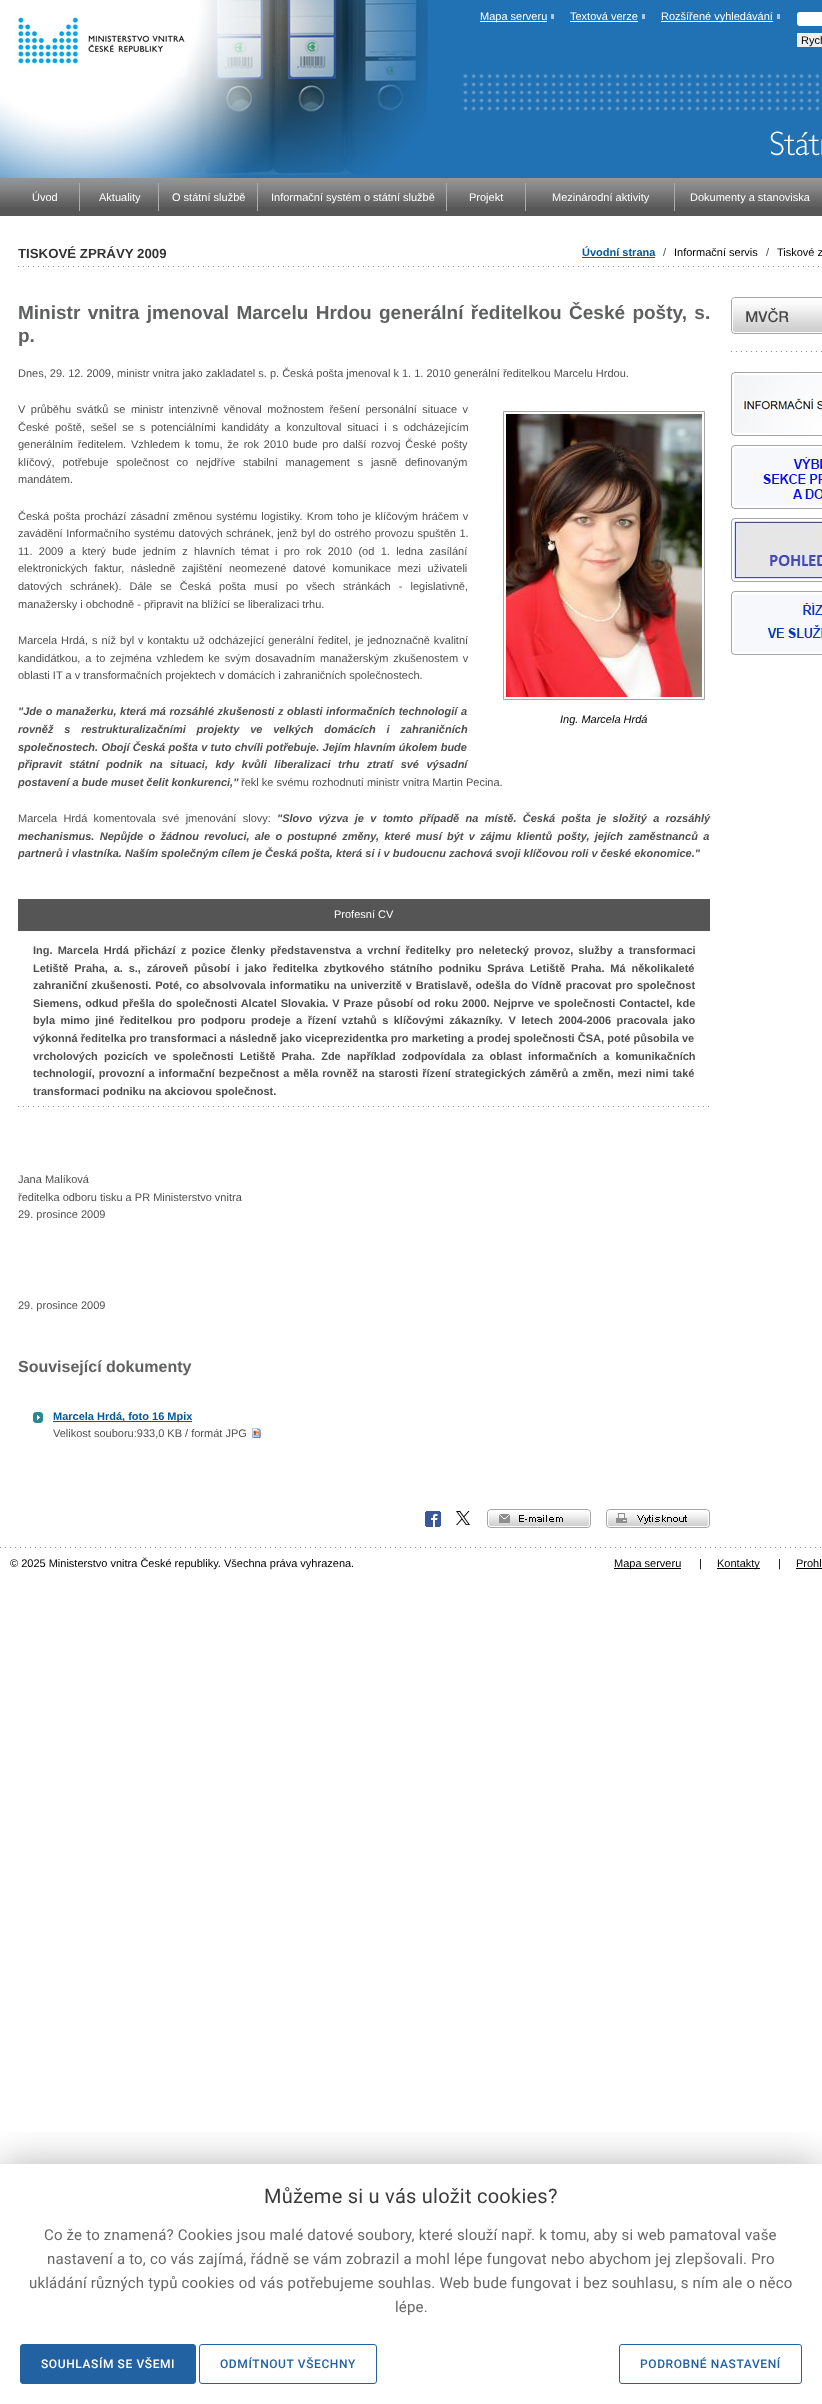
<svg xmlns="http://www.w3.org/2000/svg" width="822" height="2404">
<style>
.a{font:11px Liberation Sans;fill:#fff}
.b{font:11px Liberation Sans;fill:#000}
.c{font:bold 13.25px Liberation Sans;fill:#333}
.d{font:bold 11px Liberation Sans;fill:#00599b}
.e{font:11px Liberation Sans;fill:#4f4f4f}
.f{font:bold 19px Liberation Sans;fill:#5f6060}
.g{font:italic bold 11px Liberation Sans;fill:#4f4f4f}
.h{font:italic 11px Liberation Sans;fill:#000}
.i{font:bold 11px Liberation Sans;fill:#4f4f4f}
.j{font:bold 16px Liberation Sans;fill:#5f6060}
.k{font:20px Roboto;letter-spacing:0.25px;fill:#3b3b3b}
.l{font:15px Roboto;letter-spacing:0.19px;fill:#686868}
.m{font:500 12px Roboto;letter-spacing:0.6px;fill:#fff}
.n{font:500 12px Roboto;letter-spacing:0.6px;fill:#2362a2}
</style>
<defs>
<clipPath id="clip1"><path d="M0 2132h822v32H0z"/></clipPath>
</defs>
<rect width="100%" height="100%" fill="#fff"/>
<image href="1.png" x="0" y="0" width="822" height="178"/>
<path fill="#adc8df" d="M551 14h3v5H551z"/>
<path fill="#fff" d="M480 21h67v1H480z"/>
<path fill="#adc8df" d="M642 14h3v5H642z"/>
<path fill="#fff" d="M570 21h68v1H570z"/>
<path fill="#adc8df" d="M777 14h3v5H777z"/>
<path fill="#fff" d="M661 21h112v1H661z"/>
<rect fill="#fff" x="797" y="12" width="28" height="14" rx="3"/>
<path fill="#efefef" d="M797 33h25v14H797z"/>
<path fill="#575757" d="M0 207h822v9H0z"/>
<image href="2.png" x="0" y="178" width="822" height="29"/>
<path fill="#adadad" d="M79 183h1v28H79z"/>
<path fill="#adadad" d="M158 183h1v28H158z"/>
<path fill="#adadad" d="M257 183h1v28H257z"/>
<path fill="#adadad" d="M446 183h1v28H446z"/>
<path fill="#adadad" d="M525 183h1v28H525z"/>
<path fill="#adadad" d="M674 183h1v28H674z"/>
<image href="3.png" x="18" y="266" width="801" height="1"/>
<path fill="#00599b" d="M582 257h73v1H582z"/>
<path fill="none" stroke="#a6a6a6" d="M503.5 411.5h201v288H503.5z"/>
<image href="4.png" x="506" y="414" width="196" height="283"/>
<path fill="#555" d="M18 899h692v32H18z"/>
<image href="5.png" x="18" y="1106" width="691" height="1"/>
<image href="6.png" x="33" y="1412" width="10" height="11"/>
<path fill="#00599b" d="M53 1421h139v1H53z"/>
<image href="7.png" x="252" y="1428" width="9" height="10"/>
<image href="8.png" x="425" y="1511" width="16" height="16"/>
<image href="9.png" x="456" y="1511" width="14" height="14"/>
<image href="10.png" x="487" y="1509" width="104" height="19"/>
<image href="11.png" x="606" y="1509" width="104" height="19"/>
<image href="12.png" x="731" y="351" width="91" height="1"/>
<image href="13.png" x="731" y="297" width="91" height="37"/>
<image href="14.png" x="731" y="372" width="91" height="64"/>
<image href="15.png" x="731" y="445" width="91" height="64"/>
<image href="16.png" x="731" y="518" width="91" height="64"/>
<image href="17.png" x="731" y="591" width="91" height="64"/>
<image href="18.png" x="0" y="1547" width="821" height="1"/>
<path fill="#000" d="M614 1568h67v1H614z"/>
<path fill="#000" d="M717 1568h43v1H717z"/>
<path fill="#000" d="M796 1568h26v1H796z"/>
<g clip-path="url(#clip1)">
<path fill="#3b3b3b66" filter="blur(20px)" d="M0 2165h822v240H0z"/>
</g>
<rect fill="#2362a2" stroke="#2362a2" x="20.5" y="2344.5" width="175" height="39" rx="2.5"/>
<rect fill="none" stroke="#2362a2" x="199.5" y="2344.5" width="177" height="39" rx="2.5"/>
<rect fill="none" stroke="#2362a2" x="619.5" y="2344.5" width="182" height="39" rx="2.5"/>
<text class="a" x="480" y="20">Mapa serveru</text>
<text class="a" x="570" y="20">Textová verze</text>
<text class="a" x="661" y="20">Rozšířené vyhledávání</text>
<text class="b" x="801" y="44">Rych</text>
<text class="a" x="32" y="201">Úvod</text>
<text class="a" x="99" y="201">Aktuality</text>
<text class="a" x="172" y="201">O státní službě</text>
<text class="a" x="271" y="201">Informační systém o státní službě</text>
<text class="a" x="469" y="201">Projekt</text>
<text class="a" x="552" y="201">Mezinárodní aktivity</text>
<text class="a" x="690" y="201">Dokumenty a stanoviska</text>
<text class="c" x="18" y="258">TISKOVÉ ZPRÁVY 2009</text>
<text class="d" x="582" y="256">Úvodní strana</text>
<text class="e" x="663" y="256">/</text>
<text class="b" x="674" y="256">Informační servis</text>
<text class="e" x="766" y="256">/</text>
<text class="b" x="777" y="256">Tiskové z</text>
<text class="f" x="18" y="319" word-spacing="2.1">Ministr vnitra jmenoval Marcelu Hrdou generální ředitelkou České pošty, s.</text>
<text class="f" x="18" y="342">p.</text>
<text class="e" x="18" y="377">Dnes, 29. 12. 2009, ministr vnitra jako zakladatel s. p. Česká pošta jmenoval k 1. 1. 2010 generální ředitelkou Marcelu Hrdou.</text>
<text class="e" x="18" y="413" word-spacing="2.4">V průběhu svátků se ministr intenzivně věnoval možnostem řešení personální situace v</text>
<text class="e" x="18" y="431" word-spacing="2.75">České poště, sešel se s potenciálními kandidáty a konzultoval situaci i s odcházejícím</text>
<text class="e" x="18" y="448" word-spacing="1.75">generálním ředitelem. Vzhledem k tomu, že rok 2010 bude pro další rozvoj České pošty</text>
<text class="e" x="18" y="466" word-spacing="4.75">klíčový, potřebuje společnost co nejdříve stabilní management s jasně definovaným</text>
<text class="e" x="18" y="483">mandátem.</text>
<text class="e" x="18" y="520" word-spacing="1">Česká pošta prochází zásadní změnou systému logistiky. Krom toho je klíčovým hráčem v</text>
<text class="e" x="18" y="537" word-spacing="0.5">zavádění Informačního systému datových schránek, jenž byl do ostrého provozu spuštěn 1.</text>
<text class="e" x="18" y="555" word-spacing="3.25">11. 2009 a který bude jedním z hlavních témat i pro rok 2010 (od 1. ledna zasílání</text>
<text class="e" x="18" y="572" word-spacing="3.5">elektronických faktur, následně zajištění neomezené datové komunikace mezi uživateli</text>
<text class="e" x="18" y="590" word-spacing="5">datových schránek). Dále se Česká pošta musí po všech stránkách - legislativně,</text>
<text class="e" x="18" y="608">manažersky i obchodně - připravit na blížící se liberalizaci trhu.</text>
<text class="e" x="18" y="644" word-spacing="0.9">Marcela Hrdá, s níž byl v kontaktu už odcházející generální ředitel, je jednoznačně kvalitní</text>
<text class="e" x="18" y="662" word-spacing="1.75">kandidátkou, a to zejména vzhledem ke svým dosavadním manažerským zkušenostem v</text>
<text class="e" x="18" y="679">oblasti IT a v transformačních projektech v domácích i zahraničních společnostech.</text>
<text class="g" x="18" y="715" word-spacing="0.5">"Jde o manažerku, která má rozsáhlé zkušenosti z oblasti informačních technologií a</text>
<text class="g" x="18" y="733" word-spacing="7.75">rovněž s restrukturalizačními projekty ve velkých domácích i zahraničních</text>
<text class="g" x="18" y="751" word-spacing="0.25">společnostech. Obojí Česká pošta v tuto chvíli potřebuje. Jejím hlavním úkolem bude</text>
<text class="g" x="18" y="768" word-spacing="4.4">připravit státní podnik na situaci, kdy kvůli liberalizaci trhu ztratí své výsadní</text>
<text class="g" x="18" y="786">postavení a bude muset čelit konkurenci,"</text>
<text class="e" x="241" y="786">řekl ke svému rozhodnutí ministr vnitra Martin Pecina.</text>
<text class="h" x="560" y="723">Ing. Marcela Hrdá</text>
<text class="e" x="18" y="822" word-spacing="3.25">Marcela Hrdá komentovala své jmenování slovy:</text>
<text class="g" x="277" y="822" word-spacing="3.25">"Slovo výzva je v tomto případě na místě. Česká pošta je složitý a rozsáhlý</text>
<text class="g" x="18" y="840" word-spacing="2.25">mechanismus. Nepůjde o žádnou revoluci, ale o postupné změny, které musí být v zájmu klientů pošty, jejích zaměstnanců a</text>
<text class="g" x="18" y="857">partnerů i vlastníka. Naším společným cílem je Česká pošta, která si i v budoucnu zachová svoji klíčovou roli v české ekonomice."</text>
<text class="a" x="334" y="918">Profesní CV</text>
<text class="i" x="33" y="954" word-spacing="2.1">Ing. Marcela Hrdá přichází z pozice členky představenstva a vrchní ředitelky pro neletecký provoz, služby a transformaci</text>
<text class="i" x="33" y="972" word-spacing="2.75">Letiště Praha, a. s., zároveň působí i jako ředitelka zbytkového státního podniku Správa Letiště Praha. Má několikaleté</text>
<text class="i" x="33" y="989" word-spacing="0.9">zahraniční zkušenosti. Poté, co absolvovala informatiku na univerzitě v Bratislavě, odešla do Vídně pracovat pro společnost</text>
<text class="i" x="33" y="1007" word-spacing="0.9">Siemens, odkud přešla do společnosti Alcatel Slovakia. V Praze působí od roku 2000. Nejprve ve společnosti Contactel, kde</text>
<text class="i" x="33" y="1024" word-spacing="2.4">byla mimo jiné ředitelkou pro podporu prodeje a řízení vztahů s klíčovými zákazníky. V letech 2004-2006 pracovala jako</text>
<text class="i" x="33" y="1042" word-spacing="0.1">výkonná ředitelka pro transformaci a následně jako viceprezidentka pro marketing a prodej společnosti ČSA, poté působila ve</text>
<text class="i" x="33" y="1060" word-spacing="3.1">vrcholových pozicích ve společnosti Letiště Praha. Zde například zodpovídala za oblast informačních a komunikačních</text>
<text class="i" x="33" y="1077" word-spacing="0.9">technologií, provozní a informační bezpečnost a měla rovněž na starosti řízení strategických záměrů a změn, mezi nimi také</text>
<text class="i" x="33" y="1095">transformaci podniku na akciovou společnost.</text>
<text class="e" x="18" y="1183">Jana Malíková</text>
<text class="e" x="18" y="1201">ředitelka odboru tisku a PR Ministerstvo vnitra</text>
<text class="e" x="18" y="1218">29. prosince 2009</text>
<text class="e" x="18" y="1309">29. prosince 2009</text>
<text class="j" x="18" y="1372">Související dokumenty</text>
<text class="d" x="53" y="1420">Marcela Hrdá, foto 16 Mpix</text>
<text class="e" x="53" y="1437">Velikost souboru:933,0 KB / formát JPG</text>
<text class="b" x="10" y="1567">© 2025 Ministerstvo vnitra České republiky. Všechna práva vyhrazena.</text>
<text class="b" x="614" y="1567">Mapa serveru</text>
<text class="b" x="699" y="1567">|</text>
<text class="b" x="717" y="1567">Kontakty</text>
<text class="b" x="778" y="1567">|</text>
<text class="b" x="796" y="1567">Prohl</text>
<text class="k" x="264" y="2203">Můžeme si u vás uložit cookies?</text>
<text class="l" x="44" y="2240">Co že to znamená? Cookies jsou malé datové soubory, které slouží např. k tomu, aby si web pamatoval vaše</text>
<text class="l" x="47" y="2264">nastavení a to, co vás zajímá, řádně se vám zobrazil a mohl lépe fungovat nebo abychom jej zlepšovali. Pro</text>
<text class="l" x="29" y="2288">ukládání různých typů cookies od vás potřebujeme souhlas. Web bude fungovat i bez souhlasu, s ním ale o něco</text>
<text class="l" x="395" y="2312">lépe.</text>
<text class="m" x="41" y="2368">SOUHLASÍM SE VŠEMI</text>
<text class="n" x="220" y="2368">ODMÍTNOUT VŠECHNY</text>
<text class="n" x="640" y="2368">PODROBNÉ NASTAVENÍ</text>
</svg>
